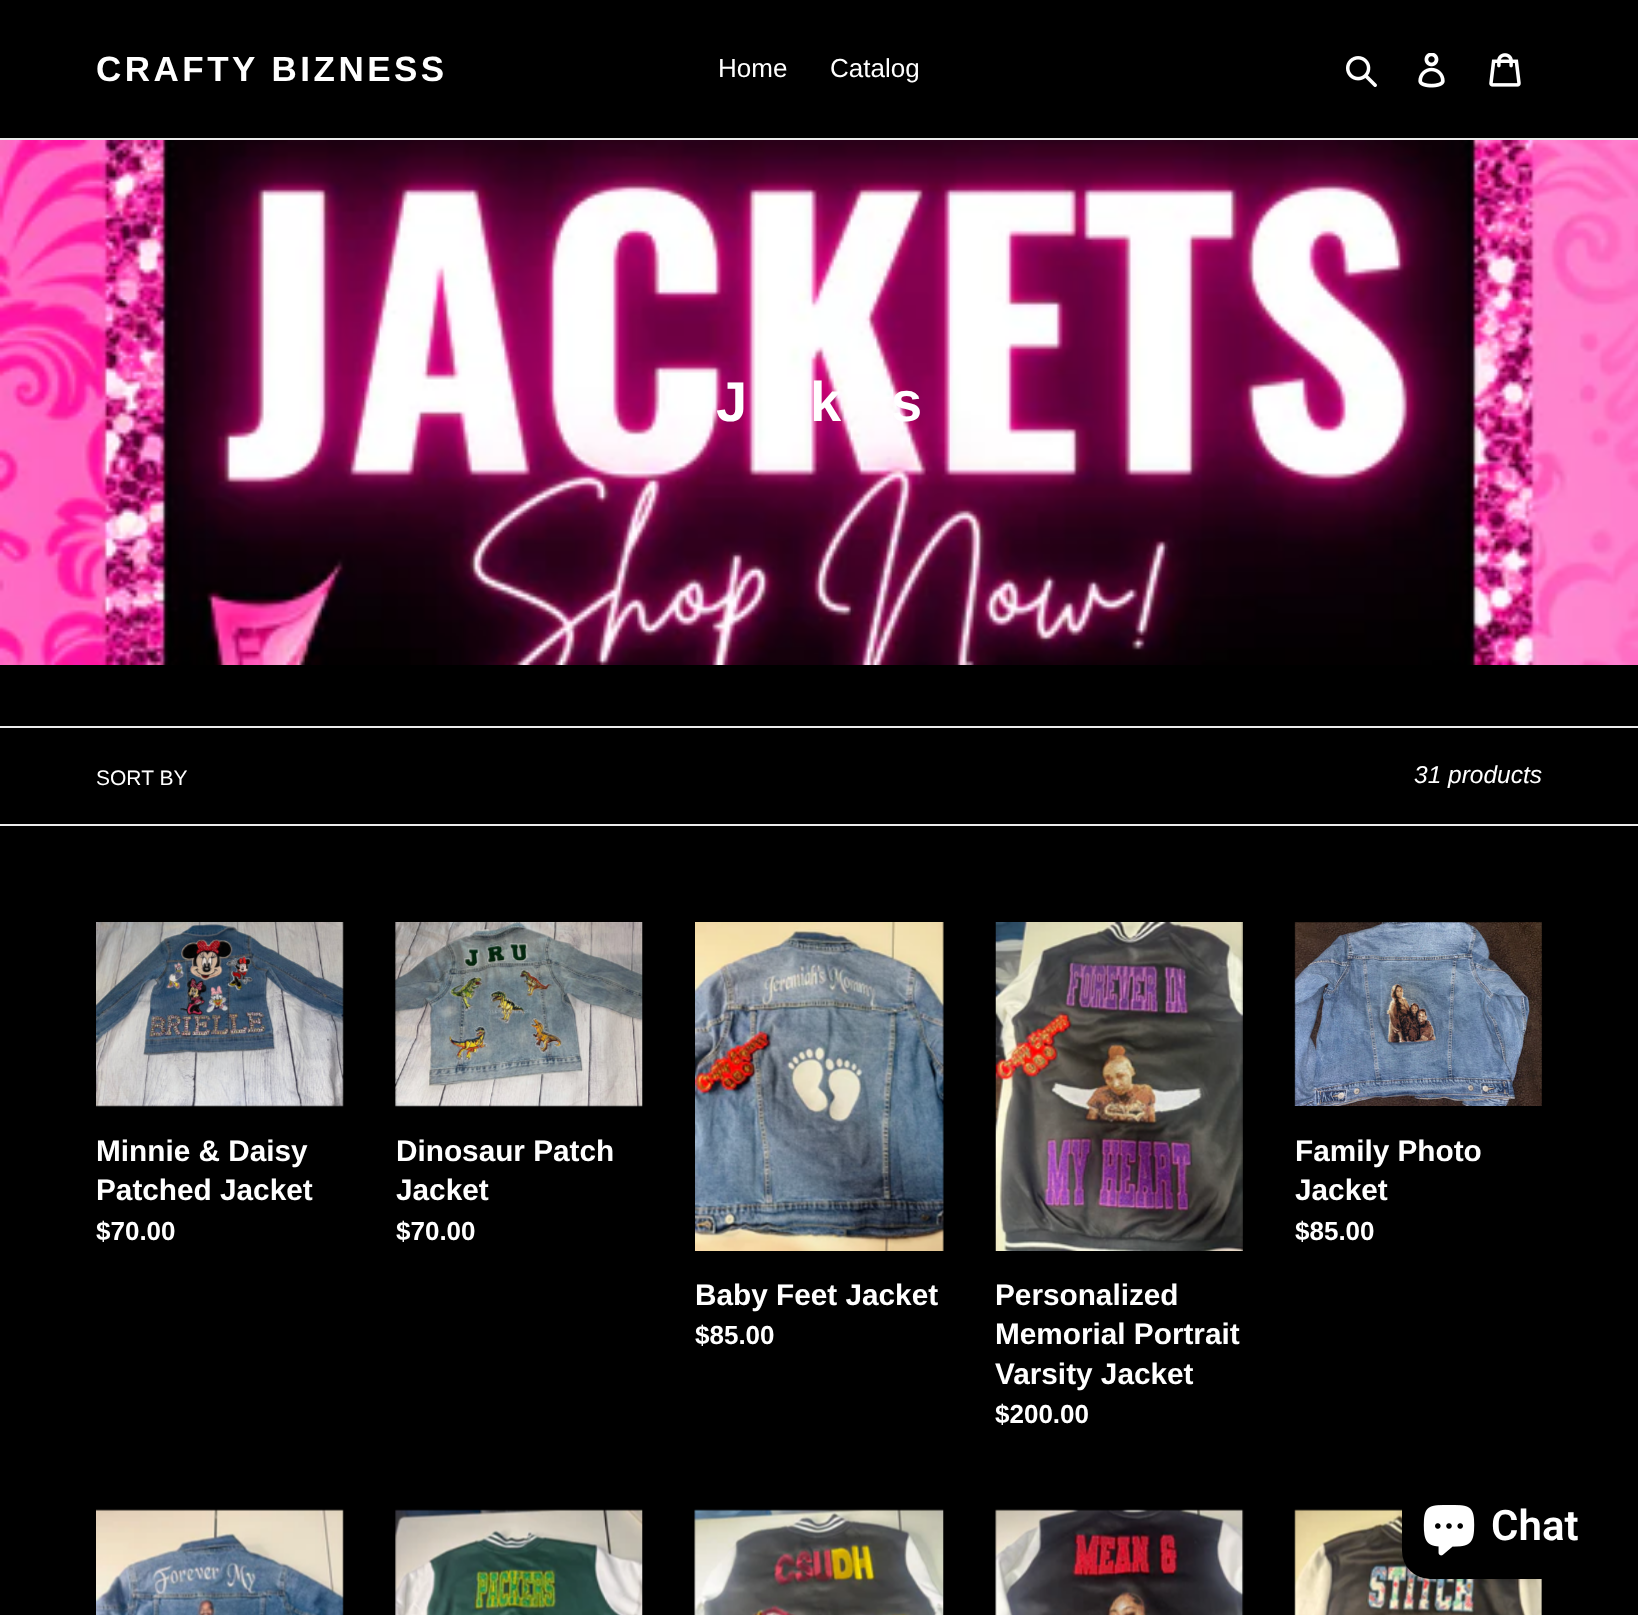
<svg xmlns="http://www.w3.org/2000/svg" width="1638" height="1615">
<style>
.a{font:bold 35px Liberation Sans;letter-spacing:3.5px;fill:#fff}
.b{font:26px Liberation Sans;fill:#fff}
.c{font:bold 56px Liberation Sans;fill:#fff}
.d{font:21px Liberation Sans;fill:#fff}
.e{font:italic 24.5px Liberation Sans;fill:#fff}
.f{font:bold 29.75px Liberation Sans;fill:#fff}
.g{font:bold 26px Liberation Sans;fill:#fff}
.h{font:600 42px Roboto;fill:#fff}
</style>
<rect width="100%" height="100%" fill="#000"/>
<path fill="#ebebeb" d="M0 138h1638v2H0z"/>
<image href="1.png" x="1346" y="56" width="31" height="31"/>
<image href="2.png" x="1418" y="53" width="27" height="35"/>
<image href="3.png" x="1489" y="53" width="32" height="34"/>
<image href="4.png" x="0" y="140" width="1638" height="525"/>
<path fill="#ebebeb" d="M0 726h1638v2H0z"/>
<path fill="#ebebeb" d="M0 824h1638v2H0z"/>
<image href="5.png" x="96" y="922" width="248" height="185"/>
<image href="6.png" x="395" y="922" width="248" height="185"/>
<image href="7.png" x="1294" y="922" width="248" height="184"/>
<image href="8.png" x="695" y="922" width="249" height="329"/>
<image href="9.png" x="995" y="922" width="248" height="329"/>
<image href="10.png" x="96" y="1509" width="248" height="106"/>
<image href="11.png" x="395" y="1509" width="248" height="106"/>
<image href="12.png" x="694" y="1509" width="250" height="106"/>
<image href="13.png" x="995" y="1509" width="249" height="106"/>
<image href="14.png" x="1294" y="1509" width="248" height="106"/>
<rect fill="#00000026" filter="blur(4.5px)" x="1402" y="1474" width="198" height="105" rx="28"/>
<rect fill="#000" x="1402" y="1474" width="198" height="105" rx="28"/>
<image href="15.png" x="1423" y="1505" width="52" height="51"/>
<text class="a" x="96" y="81">CRAFTY BIZNESS</text>
<text class="b" x="718" y="77">Home</text>
<text class="b" x="830" y="77">Catalog</text>
<text class="c" x="716" y="421">J</text>
<text class="c" x="810" y="421">k</text>
<text class="c" x="891" y="421">s</text>
<text class="d" x="96" y="785">SORT BY</text>
<text class="e" x="1414" y="783">31 products</text>
<text class="f" x="96" y="1161">Minnie &amp; Daisy</text>
<text class="f" x="96" y="1200">Patched Jacket</text>
<text class="g" x="96" y="1240">$70.00</text>
<text class="f" x="396" y="1161">Dinosaur Patch</text>
<text class="f" x="396" y="1200">Jacket</text>
<text class="g" x="396" y="1240">$70.00</text>
<text class="f" x="1295" y="1161">Family Photo</text>
<text class="f" x="1295" y="1200">Jacket</text>
<text class="g" x="1295" y="1240">$85.00</text>
<text class="f" x="695" y="1305">Baby Feet Jacket</text>
<text class="g" x="695" y="1344">$85.00</text>
<text class="f" x="995" y="1305">Personalized</text>
<text class="f" x="995" y="1344">Memorial Portrait</text>
<text class="f" x="995" y="1384">Varsity Jacket</text>
<text class="g" x="995" y="1423">$200.00</text>
<text class="h" x="1491" y="1540">Chat</text>
</svg>
